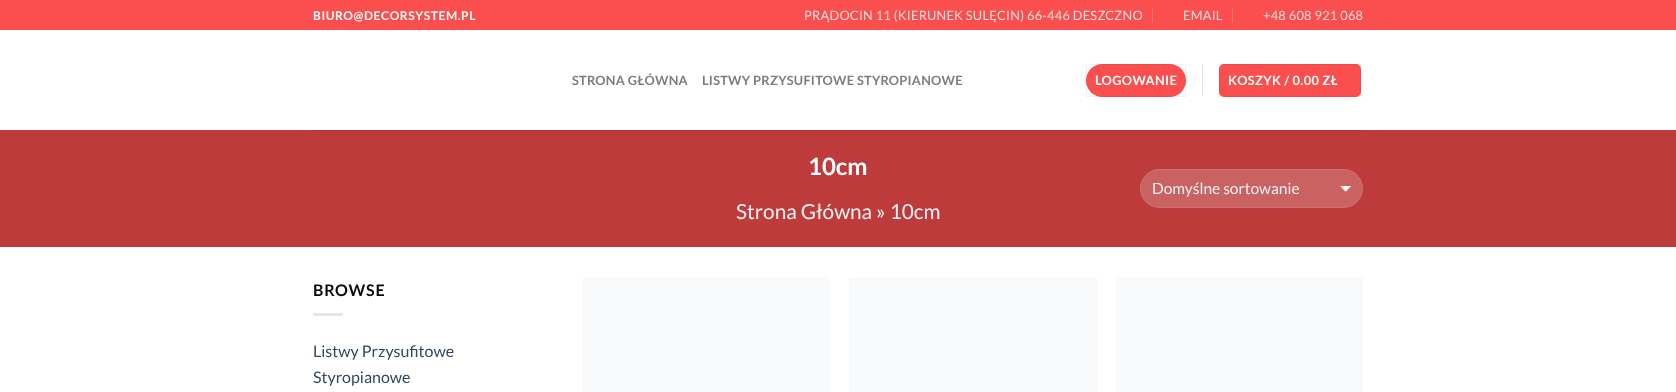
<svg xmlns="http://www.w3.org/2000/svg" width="1676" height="392">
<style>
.a{font:bold 12px Lato;letter-spacing:0.6px;fill:#fff}
.b{font:12.8px Lato;letter-spacing:0.25px;fill:#fedcdc}
.c{font:bold 12.8px Lato;letter-spacing:0.25px;fill:#7d7d7d}
.d{font:bold 12.8px Lato;letter-spacing:0.4px;fill:#fff}
.e{font:bold 24px Lato;fill:#fff}
.f{font:20.75px Lato;fill:#f1f1f1}
.g{font:15.5px Lato;fill:#f1f1f1}
.h{font:bold 16px Lato;letter-spacing:0.75px;fill:#0a0a0a}
.i{font:16px Lato;fill:#334862}
</style>
<rect width="100%" height="100%" fill="#fff"/>
<path fill="#fb4e4e" d="M0 0h1676v30H0z"/>
<path fill="#fc7171" d="M1152 8h1v15H1152z"/>
<path fill="#fc7171" d="M1232 8h1v15H1232z"/>
<rect fill="#fb4e4e" x="1086" y="64" width="100" height="33" rx="16.5"/>
<path fill="none" stroke="#0000000d" d="M1086.5 64.5h99v32H1086.5z"/>
<path fill="#e6e6e6" d="M1202 65h1v30H1202z"/>
<rect fill="#fb4e4e" x="1219" y="64" width="142" height="33" rx="5"/>
<path fill="none" stroke="#0000000d" d="M1219.5 64.5h141v32H1219.5z"/>
<path fill="#bd3b3b" d="M0 130h1676v117H0z"/>
<path fill="#ab3636" d="M313 130h1050v1H313z"/>
<rect fill="#ca6262" x="1140" y="169" width="223" height="39" rx="19.5"/>
<image href="1.png" x="1340" y="186" width="12" height="6"/>
<rect fill="none" stroke="#ffffff17" x="1140.5" y="169.5" width="222" height="38" rx="19"/>
<path fill="#e6e6e6" d="M313 313h30v3H313z"/>
<path fill="#f9fafb" d="M583 277h247v115H583z"/>
<path fill="#f9fafb" d="M849 277h248v115H849z"/>
<path fill="#f9fafb" d="M1116 277h247v115H1116z"/>
<text class="a" x="313" y="20">BIURO@DECORSYSTEM.PL</text>
<text class="b" x="804" y="20">PRĄDOCIN 11 (KIERUNEK SULĘCIN) 66-446 DESZCZNO</text>
<text class="b" x="1183" y="20">EMAIL</text>
<text class="b" x="1263" y="20">+48 608 921 068</text>
<text class="c" x="572" y="85">STRONA GŁÓWNA</text>
<text class="c" x="702" y="85">LISTWY PRZYSUFITOWE STYROPIANOWE</text>
<text class="d" x="1095" y="85">LOGOWANIE</text>
<text class="d" x="1228" y="85">KOSZYK / 0.00 ZŁ</text>
<text class="e" x="808" y="175">10cm</text>
<text class="f" x="736" y="219">Strona Główna » 10cm</text>
<text class="g" x="1152" y="194">Domyślne sortowanie</text>
<text class="h" x="313" y="296">BROWSE</text>
<text class="i" x="313" y="357">Listwy Przysufitowe</text>
<text class="i" x="313" y="383">Styropianowe</text>
</svg>
